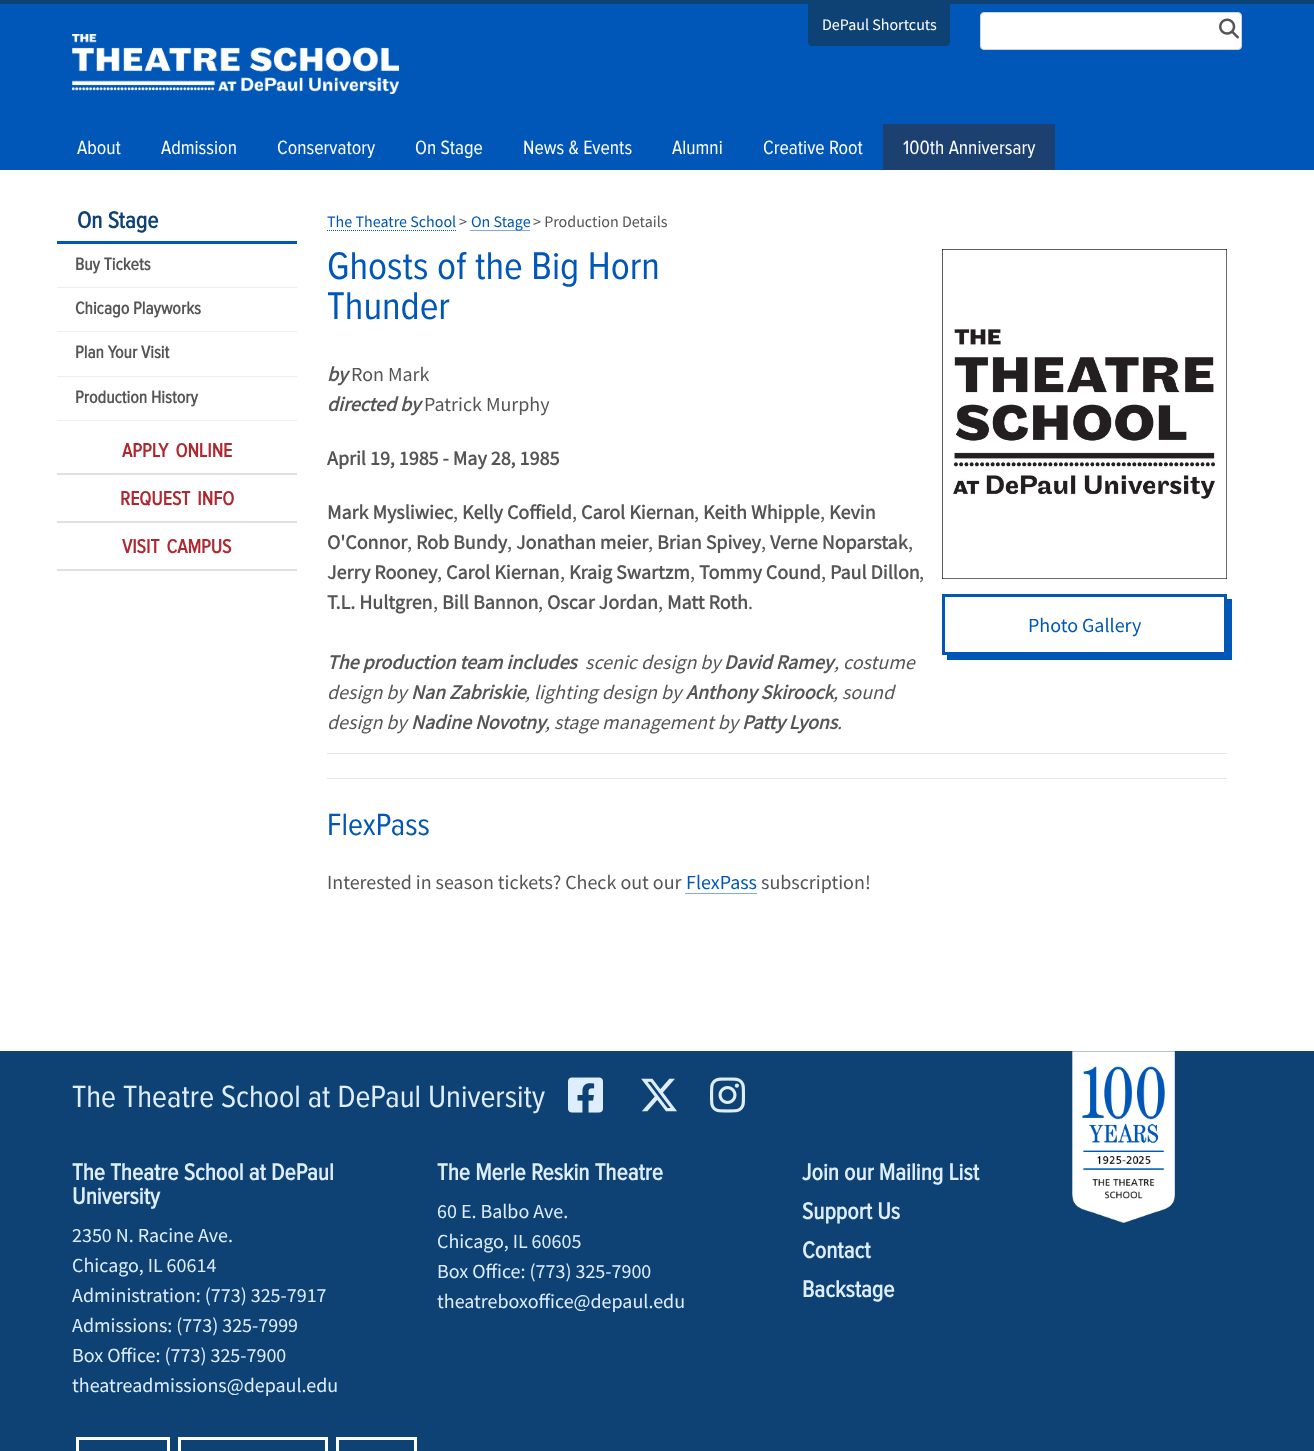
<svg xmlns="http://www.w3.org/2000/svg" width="1314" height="1451">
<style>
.a{font:16px Source Sans Pro;fill:#fff}
.b{font:20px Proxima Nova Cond;fill:#fff}
.c{font:bold 24px Proxima Nova Cond;fill:#0e4174}
.d{font:bold 18px Proxima Nova Cond;fill:#555}
.e{font:bold 20px Proxima Nova Cond;fill:#af272f}
.f{font:16px Source Sans Pro;fill:#0057b7}
.g{font:16px Source Sans Pro;fill:#555}
.h{font:40px Proxima Nova Cond;fill:#0057b7}
.i{font:italic bold 20px Source Sans Pro;fill:#555}
.j{font:20px Source Sans Pro;fill:#555}
.k{font:bold 20px Source Sans Pro;fill:#555}
.l{font:20px Source Sans Pro;fill:#0057b7}
.m{font:italic 20px Source Sans Pro;fill:#555}
.n{font:32px Proxima Nova Cond;fill:#0057b7}
.o{font:32px Proxima Nova Cond;fill:#deeeff}
.p{font:bold 24px Proxima Nova Cond;fill:#deeeff}
.q{font:20px Source Sans Pro;fill:#deeeff}
</style>
<rect width="100%" height="100%" fill="#fff"/>
<path fill="#0e4174" d="M0 0h1314v4H0z"/>
<path fill="#0057b7" d="M0 4h1314v166H0z"/>
<path fill="#0e4174" d="M808 4h142v38c0 2-2 4-4 4h-134c-2 0-4-2-4-4z"/>
<rect fill="#fff" stroke="#ced4da" x="980.5" y="12.5" width="261" height="37" rx="3.5"/>
<image href="1.png" x="1219" y="18" width="20" height="21"/>
<image href="2.png" x="72" y="34" width="327" height="60"/>
<path fill="#1c4170" d="M883 124h172v46H883z"/>
<path fill="#0057b7" d="M57 241h240v3H57z"/>
<path fill="#eee" d="M57 287h240v1H57z"/>
<path fill="#eee" d="M57 331h240v1H57z"/>
<path fill="#eee" d="M57 376h240v1H57z"/>
<path fill="#eee" d="M57 420h240v1H57z"/>
<path fill="#e0e0e0" d="M57 473h240v2H57z"/>
<path fill="#e0e0e0" d="M57 521h240v2H57z"/>
<path fill="#e0e0e0" d="M57 569h240v2H57z"/>
<path fill="none" stroke="#0057b7" stroke-dasharray="1 1" d="M327 230.5h129"/>
<path fill="none" stroke="#0057b7" stroke-dasharray="1 1" d="M470.5 230.5h59.5"/>
<image href="3.png" x="942" y="249" width="285" height="330"/>
<path fill="#0057b7" d="M947 655v5h285v-61h-5v56z"/>
<path fill="none" stroke="#0057b7" stroke-width="3" d="M943.5 595.5h282v58H943.5z"/>
<path fill="#e6e6e6" d="M327 753h900v1H327z"/>
<path fill="#e6e6e6" d="M327 778h900v1H327z"/>
<path fill="none" stroke="#0057b7" stroke-dasharray="1 1" d="M685.5 893.5h71"/>
<path fill="#0e4174" d="M0 1051h1314v400H0z"/>
<image href="4.png" x="568" y="1077" width="35" height="36"/>
<image href="5.png" x="641" y="1078" width="36" height="34"/>
<image href="6.png" x="710" y="1077" width="35" height="36"/>
<image href="7.png" x="1072" y="1051" width="103" height="172"/>
<path fill="none" stroke="#fff" stroke-width="3" d="M77.5 1438.5h91v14H77.5z"/>
<path fill="none" stroke="#fff" stroke-width="3" d="M179.5 1438.5h147v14H179.5z"/>
<path fill="none" stroke="#fff" stroke-width="3" d="M337.5 1438.5h78v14H337.5z"/>
<text class="a" x="822" y="30">DePaul Shortcuts</text>
<text class="b" x="77" y="154">About</text>
<text class="b" x="161" y="154">Admission</text>
<text class="b" x="277" y="154">Conservatory</text>
<text class="b" x="415" y="154">On Stage</text>
<text class="b" x="523" y="154">News &amp; Events</text>
<text class="b" x="672" y="154">Alumni</text>
<text class="b" x="763" y="154">Creative Root</text>
<text class="b" x="903" y="154">100th Anniversary</text>
<text class="c" x="77" y="228">On Stage</text>
<text class="d" x="75" y="270">Buy Tickets</text>
<text class="d" x="75" y="314">Chicago Playworks</text>
<text class="d" x="75" y="358">Plan Your Visit</text>
<text class="d" x="75" y="403">Production History</text>
<text class="e" x="122" y="457" word-spacing="3">APPLY ONLINE</text>
<text class="e" x="120" y="505" word-spacing="3">REQUEST INFO</text>
<text class="e" x="122" y="553" word-spacing="3">VISIT CAMPUS</text>
<text class="f" x="327" y="227">The Theatre School</text>
<text class="g" x="459" y="227">&gt;</text>
<text class="f" x="471" y="227">On Stage</text>
<text class="g" x="533" y="227">&gt; Production Details</text>
<text class="h" x="327" y="279">Ghosts of the Big Horn</text>
<text class="h" x="327" y="319">Thunder</text>
<text class="i" x="327" y="381">by</text>
<text class="j" x="351" y="381">Ron Mark</text>
<text class="i" x="327" y="411">directed by</text>
<text class="j" x="424" y="411">Patrick Murphy</text>
<text class="k" x="327" y="465">April 19, 1985 - May 28, 1985</text>
<text class="l" x="1028" y="632">Photo Gallery</text>
<text class="k" x="327" y="519">Mark Mysliwiec</text>
<text class="j" x="453" y="519">,</text>
<text class="k" x="462" y="519">Kelly Coffield</text>
<text class="j" x="572" y="519">,</text>
<text class="k" x="581" y="519">Carol Kiernan</text>
<text class="j" x="694" y="519">,</text>
<text class="k" x="703" y="519">Keith Whipple</text>
<text class="j" x="820" y="519">,</text>
<text class="k" x="829" y="519">Kevin</text>
<text class="k" x="327" y="549">O'Connor</text>
<text class="j" x="407" y="549">,</text>
<text class="k" x="416" y="549">Rob Bundy</text>
<text class="j" x="507" y="549">,</text>
<text class="k" x="516" y="549">Jonathan meier</text>
<text class="j" x="648" y="549">,</text>
<text class="k" x="657" y="549">Brian Spivey</text>
<text class="j" x="761" y="549">,</text>
<text class="k" x="770" y="549">Verne Noparstak</text>
<text class="j" x="908" y="549">,</text>
<text class="k" x="327" y="579">Jerry Rooney</text>
<text class="j" x="437" y="579">,</text>
<text class="k" x="446" y="579">Carol Kiernan</text>
<text class="j" x="560" y="579">,</text>
<text class="k" x="569" y="579">Kraig Swartzm</text>
<text class="j" x="690" y="579">,</text>
<text class="k" x="699" y="579">Tommy Cound</text>
<text class="j" x="821" y="579">,</text>
<text class="k" x="830" y="579">Paul Dillon</text>
<text class="j" x="919" y="579">,</text>
<text class="k" x="327" y="609">T.L. Hultgren</text>
<text class="j" x="433" y="609">,</text>
<text class="k" x="442" y="609">Bill Bannon</text>
<text class="j" x="538" y="609">,</text>
<text class="k" x="547" y="609">Oscar Jordan</text>
<text class="j" x="658" y="609">,</text>
<text class="k" x="667" y="609">Matt Roth</text>
<text class="j" x="748" y="609">.</text>
<text class="i" x="327" y="669">The production team includes</text>
<text class="m" x="585" y="669">scenic design by</text>
<text class="i" x="724" y="669">David Ramey</text>
<text class="m" x="834" y="669">, costume</text>
<text class="m" x="327" y="699">design by</text>
<text class="i" x="411" y="699">Nan Zabriskie</text>
<text class="m" x="525" y="699">, lighting design by</text>
<text class="i" x="686" y="699">Anthony Skiroock</text>
<text class="m" x="833" y="699">, sound</text>
<text class="m" x="327" y="729">design by</text>
<text class="i" x="411" y="729">Nadine Novotny</text>
<text class="m" x="545" y="729">, stage management by</text>
<text class="i" x="742" y="729">Patty Lyons</text>
<text class="m" x="837" y="729">.</text>
<text class="n" x="327" y="835">FlexPass</text>
<text class="j" x="327" y="889">Interested in season tickets? Check out our</text>
<text class="l" x="686" y="889">FlexPass</text>
<text class="j" x="761" y="889">subscription!</text>
<text class="o" x="72" y="1107">The Theatre School at DePaul University</text>
<text class="p" x="72" y="1180">The Theatre School at DePaul</text>
<text class="p" x="72" y="1204">University</text>
<text class="q" x="72" y="1242">2350 N. Racine Ave.</text>
<text class="q" x="72" y="1272">Chicago, IL 60614</text>
<text class="q" x="72" y="1302">Administration: (773) 325-7917</text>
<text class="q" x="72" y="1332">Admissions: (773) 325-7999</text>
<text class="q" x="72" y="1362">Box Office: (773) 325-7900</text>
<text class="q" x="72" y="1392">theatreadmissions@depaul.edu</text>
<text class="p" x="437" y="1180">The Merle Reskin Theatre</text>
<text class="q" x="437" y="1218">60 E. Balbo Ave.</text>
<text class="q" x="437" y="1248">Chicago, IL 60605</text>
<text class="q" x="437" y="1278">Box Office: (773) 325-7900</text>
<text class="q" x="437" y="1308">theatreboxoffice@depaul.edu</text>
<text class="p" x="802" y="1180">Join our Mailing List</text>
<text class="p" x="802" y="1219">Support Us</text>
<text class="p" x="802" y="1258">Contact</text>
<text class="p" x="802" y="1297">Backstage</text>
</svg>
